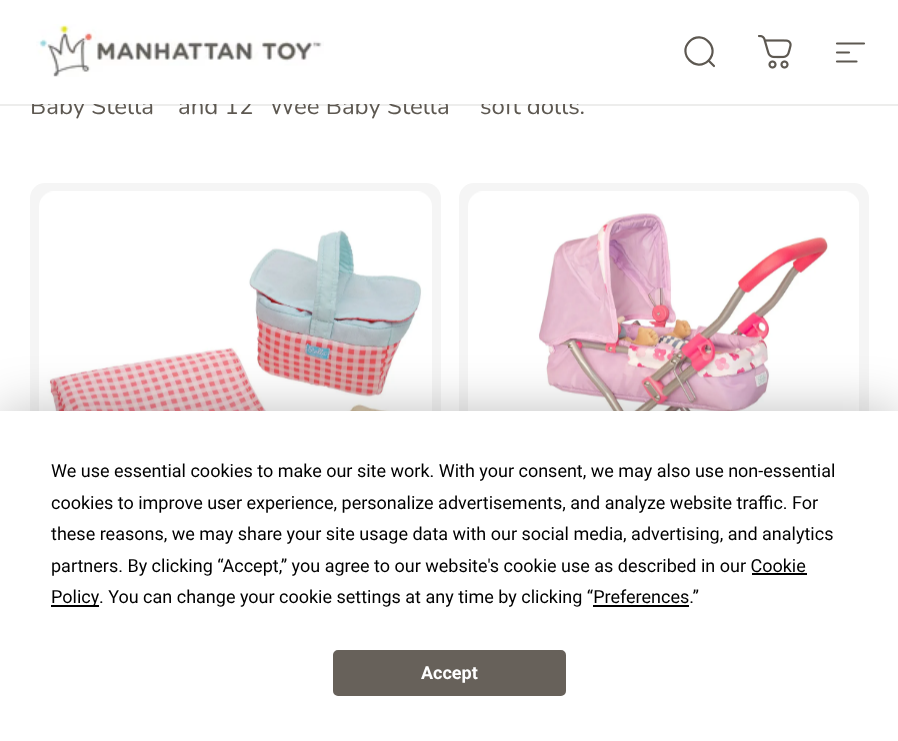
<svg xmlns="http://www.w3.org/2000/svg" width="898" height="741">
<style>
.a{font:24px Nunito;fill:#5d5851}
.b{font:18px Roboto;fill:#000}
.c{font:bold 18px Roboto;fill:#fff}
</style>
<rect width="100%" height="100%" fill="#fff"/>
<image href="1.png" x="36" y="24" width="288" height="53"/>
<path fill="none" stroke="#5d5851" stroke-width="2.2" stroke-linecap="round" d="M714 66l-5.5-5.5m0 0c12.5-12.5-6.5-31.5-19-19c-12.5 12.5 6.5 31.5 19 19z"/>
<image href="2.png" x="758" y="35" width="34" height="34"/>
<path fill="none" stroke="#5d5851" stroke-width="2.2" stroke-linecap="round" d="M837 43.5h27m-27 9h12m-12 9h19.5"/>
<path fill="#5d58511c" d="M0 104h898v2H0z"/>
<rect fill="#f5f5f5" x="30" y="183" width="411" height="521" rx="15"/>
<image href="3.png" x="39" y="191" width="393" height="220"/>
<rect fill="#f5f5f5" x="459" y="183" width="410" height="521" rx="15"/>
<image href="4.png" x="468" y="191" width="391" height="220"/>
<path fill="#00000040" filter="blur(26px)" d="M0 411h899v330H0z"/>
<path fill="#fff" d="M0 411h898v330H0z"/>
<path fill="#000" d="M752 573h55v2H752z"/>
<path fill="#000" d="M51 605h48v2H51z"/>
<path fill="#000" d="M593 605h96v2H593z"/>
<rect fill="#67615a" stroke="#67615a" stroke-width="2" x="334" y="651" width="231" height="44" rx="4"/>
<text class="a" x="30" y="114">Baby Stella</text>
<text class="a" x="178" y="114">and 12" Wee Baby Stella</text>
<text class="a" x="480" y="114">soft dolls.</text>
<path fill="#fff" d="M32 96h547v8H32z"/>
<text class="b" x="51" y="477">We use essential cookies to make our site work. With your consent, we may also use non-essential</text>
<text class="b" x="51" y="509">cookies to improve user experience, personalize advertisements, and analyze website traffic. For</text>
<text class="b" x="51" y="540">these reasons, we may share your site usage data with our social media, advertising, and analytics</text>
<text class="b" x="51" y="572">partners. By clicking “Accept,” you agree to our website's cookie use as described in our Cookie</text>
<text class="b" x="51" y="603">Policy</text>
<text class="b" x="99" y="603">. You can change your cookie settings at any time by clicking “Preferences.”</text>
<text class="c" x="421" y="679">Accept</text>
</svg>
